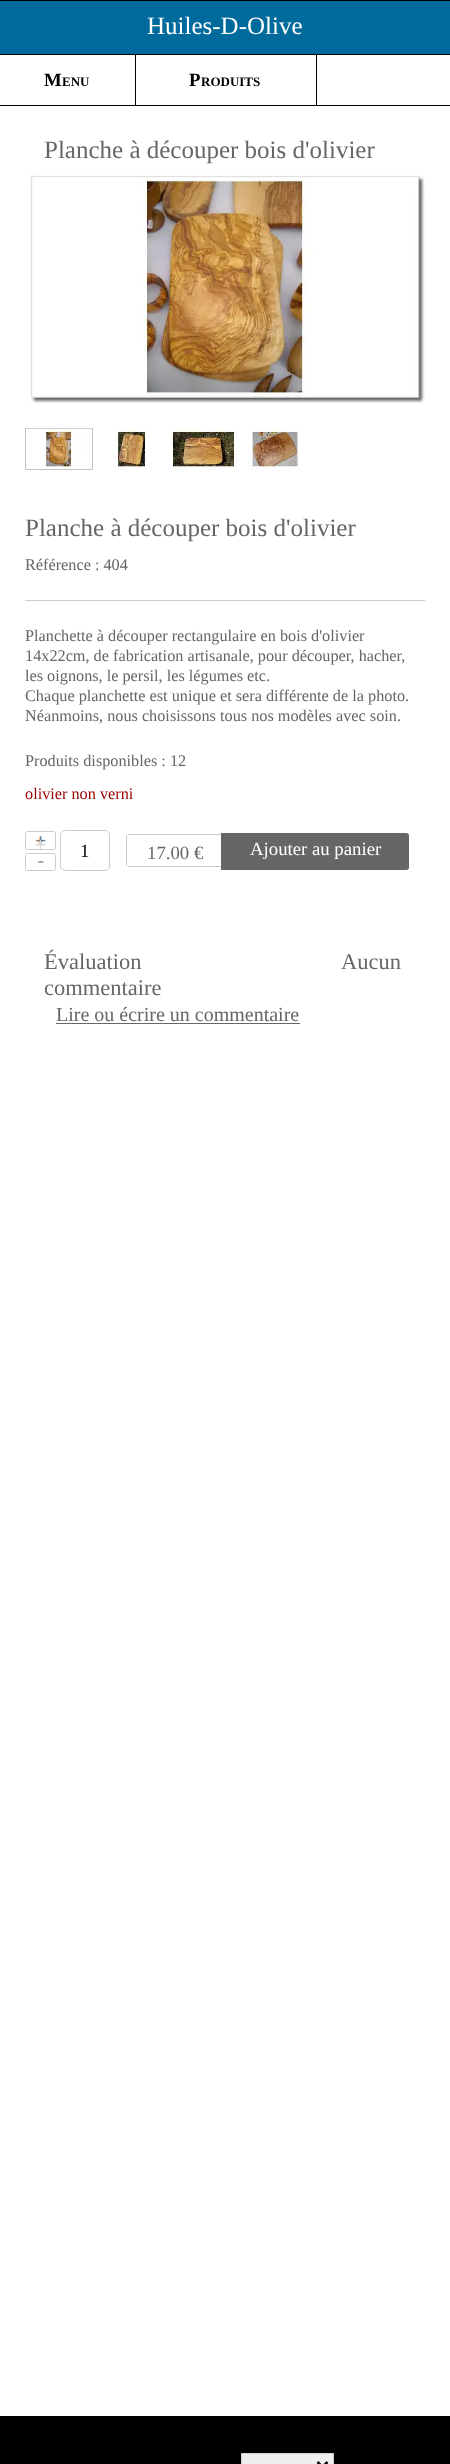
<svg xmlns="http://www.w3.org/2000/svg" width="450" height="2464">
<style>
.a{font:25px Liberation Serif;fill:#fff}
.b{font:bold 18.75px Liberation Serif;fill:#000}
.c{font:bold 13px Liberation Serif;fill:#000}
.d{font:25px Liberation Serif;fill:#666}
.e{font:16.25px Liberation Serif;fill:#666}
.f{font:16.25px Liberation Serif;fill:#900}
.g{font:18.75px Liberation Sans;fill:#dbdadb}
.h{font:18.75px Liberation Serif;fill:#000}
.i{font:18.75px Liberation Serif;fill:#666}
.j{font:18.75px Liberation Serif;fill:#fff}
.k{font:22.5px Liberation Serif;fill:#666}
.l{font:20px Liberation Serif;fill:#666}
</style>
<rect width="100%" height="100%" fill="#fff"/>
<path fill="#006a9d" d="M0 1h450v53H0z"/>
<path fill="#000" d="M0 0h450v1H0z"/>
<path fill="#000" d="M0 54h450v1H0z"/>
<path fill="#000" d="M0 105h450v1H0z"/>
<path fill="#000" d="M135 55h1v50H135z"/>
<path fill="#000" d="M316 55h1v50H316z"/>
<image href="1.png" x="30" y="175" width="395" height="229"/>
<path fill="none" stroke="#c1c1c1" d="M25.5 428.5h67v41H25.5z"/>
<image href="2.png" x="26" y="428" width="65" height="40"/>
<image href="3.png" x="115" y="430" width="31" height="38"/>
<image href="4.png" x="170" y="429" width="66" height="39"/>
<image href="5.png" x="251" y="428" width="48" height="40"/>
<path fill="#ccc" d="M25 600h400v1H25z"/>
<image href="6.png" x="35" y="836" width="12" height="10"/>
<rect fill="none" stroke="#ccc" x="25.5" y="831.5" width="30" height="18" rx="2"/>
<image href="7.png" x="37" y="861" width="7" height="2"/>
<rect fill="none" stroke="#ccc" x="25.5" y="853.5" width="30" height="17" rx="2"/>
<rect fill="none" stroke="#ccc" x="60.5" y="830.5" width="49" height="40" rx="4.5"/>
<path fill="#ccc" d="M128 834h93v1H128z"/>
<path fill="#ccc" d="M128 866h93v1H128z"/>
<path fill="#ccc" d="M126 835h1v31H126z"/>
<path fill="#666" d="M221 833h185.5c1.5 0 2.5 1 2.5 2.5v32c0 1.5-1 2.5-2.5 2.5h-185.5z"/>
<path fill="#666" d="M56 1023h244v1H56z"/>
<path fill="#000" d="M0 2416h450v48H0z"/>
<path fill="#efefef" stroke="#cfcfcf" d="M241.5 2453.5h92v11H241.5z"/>
<path fill="none" stroke="#000" stroke-width="2.5" d="M317.5 2462l5 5l5-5"/>
<text class="a" x="147" y="34">Huiles-D-Olive</text>
<text class="b" x="44" y="86">M</text>
<text class="c" x="62" y="86">ENU</text>
<text class="b" x="189" y="86">P</text>
<text class="c" x="201" y="86">RODUITS</text>
<text class="d" x="44" y="158">Planche à découper bois d'olivier</text>
<text class="d" x="25" y="536">Planche à découper bois d'olivier</text>
<text class="e" x="25" y="570">Référence : 404</text>
<text class="e" x="25" y="641">Planchette à découper rectangulaire en bois d'olivier</text>
<text class="e" x="25" y="661">14x22cm, de fabrication artisanale, pour découper, hacher,</text>
<text class="e" x="25" y="681">les oignons, le persil, les légumes etc.</text>
<text class="e" x="25" y="701">Chaque planchette est unique et sera différente de la photo.</text>
<text class="e" x="25" y="721">Néanmoins, nous choisissons tous nos modèles avec soin.</text>
<text class="e" x="25" y="766">Produits disponibles : 12</text>
<text class="f" x="25" y="799">olivier non verni</text>
<text class="g" x="35" y="851">+</text>
<text class="h" x="80" y="857">1</text>
<text class="i" x="147" y="859">17.00 €</text>
<text class="j" x="250" y="855">Ajouter au panier</text>
<text class="k" x="44" y="969">Évaluation</text>
<text class="k" x="341" y="969">Aucun</text>
<text class="k" x="44" y="995">commentaire</text>
<text class="l" x="56" y="1021">Lire ou écrire un commentaire</text>
</svg>
